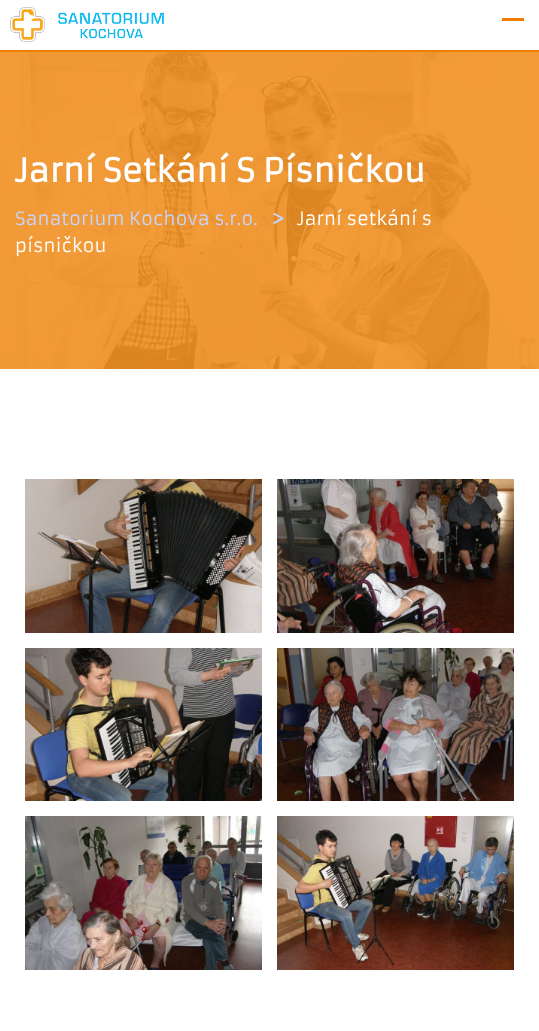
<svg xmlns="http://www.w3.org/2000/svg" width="539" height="1031">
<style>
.a{font:bold 32px Armata;fill:#fff}
.b{font:18px Armata;fill:#c5d5ff}
.c{font:bold 20px Armata;fill:#c5d5ff}
.d{font:18px Armata;fill:#fff}
</style>
<rect width="100%" height="100%" fill="#fff"/>
<path fill="#f07d00" d="M0 50h539v2H0z"/>
<image href="1.png" x="10" y="7" width="154" height="35"/>
<path fill="#f07d00" d="M502 18h22v3H502z"/>
<image href="2.png" x="0" y="52" width="539" height="317"/>
<image href="3.png" x="25" y="479" width="237" height="154"/>
<image href="4.png" x="277" y="479" width="237" height="154"/>
<image href="5.png" x="25" y="648" width="237" height="153"/>
<image href="6.png" x="277" y="648" width="237" height="153"/>
<image href="7.png" x="25" y="816" width="237" height="154"/>
<image href="8.png" x="277" y="816" width="237" height="154"/>
<text class="a" x="15" y="182">Jarní Setkání S Písničkou</text>
<text class="b" x="15" y="225">Sanatorium Kochova s.r.o.</text>
<text class="c" x="271" y="225">&gt;</text>
<text class="d" x="297" y="225">Jarní setkání s</text>
<text class="d" x="15" y="252">písničkou</text>
</svg>
